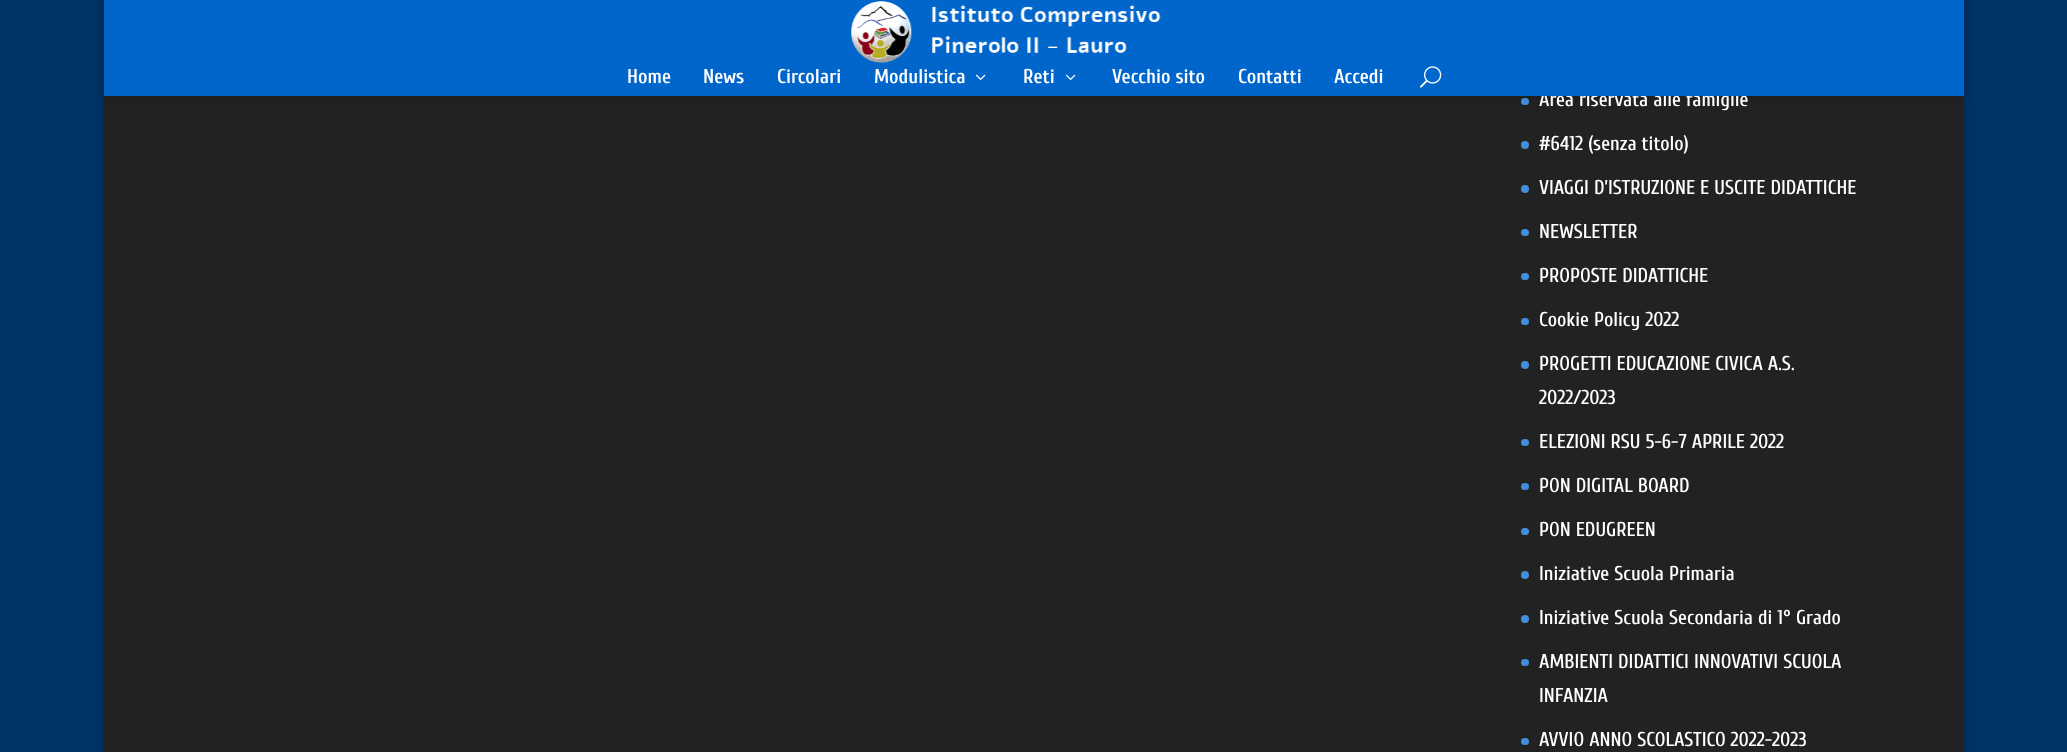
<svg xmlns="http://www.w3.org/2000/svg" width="2067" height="752">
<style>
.a{font:500 20px Cuprum;fill:#fff}
.b{font:600 20px Cuprum;fill:#fff}
</style>
<rect width="100%" height="100%" fill="#036"/>
<path fill="#00000033" filter="blur(6px)" d="M104 -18h1860v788H104z"/>
<path fill="#222" d="M104 96h1860v656H104z"/>
<rect fill="#428fdb" x="1521" y="98" width="8" height="7" rx="3.5"/>
<path fill="#0000001a" filter="blur(4.5px)" d="M104 0h1860v96H104z"/>
<circle fill="#428fdb" cx="1525" cy="145" r="4"/>
<circle fill="#428fdb" cx="1525" cy="189" r="4"/>
<rect fill="#428fdb" x="1521" y="229" width="8" height="7" rx="3.5"/>
<rect fill="#428fdb" x="1521" y="273" width="8" height="7" rx="3.5"/>
<rect fill="#428fdb" x="1521" y="318" width="8" height="7" rx="3.5"/>
<circle fill="#428fdb" cx="1525" cy="365" r="4"/>
<rect fill="#428fdb" x="1521" y="439" width="8" height="7" rx="3.5"/>
<rect fill="#428fdb" x="1521" y="483" width="8" height="7" rx="3.5"/>
<rect fill="#428fdb" x="1521" y="528" width="8" height="7" rx="3.5"/>
<circle fill="#428fdb" cx="1525" cy="575" r="4"/>
<circle fill="#428fdb" cx="1525" cy="619" r="4"/>
<rect fill="#428fdb" x="1521" y="659" width="8" height="7" rx="3.5"/>
<rect fill="#428fdb" x="1521" y="738" width="8" height="7" rx="3.5"/>
<text class="a" x="1539" y="106">Area riservata alle famiglie</text>
<path fill="#06c" d="M104 0h1860v96H104z"/>
<image href="3.png" x="1420" y="66" width="22" height="22"/>
<text class="b" x="1334" y="83">Accedi</text>
<text class="b" x="1238" y="83">Contatti</text>
<text class="b" x="1112" y="83">Vecchio sito</text>
<image href="2.png" x="1066" y="74" width="10" height="6"/>
<text class="b" x="1023" y="83">Reti</text>
<image href="2.png" x="976" y="74" width="10" height="6"/>
<text class="b" x="874" y="83">Modulistica</text>
<text class="b" x="777" y="83">Circolari</text>
<text class="b" x="703" y="83">News</text>
<text class="b" x="627" y="83">Home</text>
<image href="1.png" x="851" y="1" width="310" height="62"/>
<text class="a" x="1539" y="150">#6412 (senza titolo)</text>
<text class="a" x="1539" y="194">VIAGGI D’ISTRUZIONE E USCITE DIDATTICHE</text>
<text class="a" x="1539" y="238">NEWSLETTER</text>
<text class="a" x="1539" y="282">PROPOSTE DIDATTICHE</text>
<text class="a" x="1539" y="326">Cookie Policy 2022</text>
<text class="a" x="1539" y="370">PROGETTI EDUCAZIONE CIVICA A.S.</text>
<text class="a" x="1539" y="404">2022/2023</text>
<text class="a" x="1539" y="448">ELEZIONI RSU 5-6-7 APRILE 2022</text>
<text class="a" x="1539" y="492">PON DIGITAL BOARD</text>
<text class="a" x="1539" y="536">PON EDUGREEN</text>
<text class="a" x="1539" y="580">Iniziative Scuola Primaria</text>
<text class="a" x="1539" y="624">Iniziative Scuola Secondaria di 1° Grado</text>
<text class="a" x="1539" y="668">AMBIENTI DIDATTICI INNOVATIVI SCUOLA</text>
<text class="a" x="1539" y="702">INFANZIA</text>
<text class="a" x="1539" y="746">AVVIO ANNO SCOLASTICO 2022-2023</text>
</svg>
